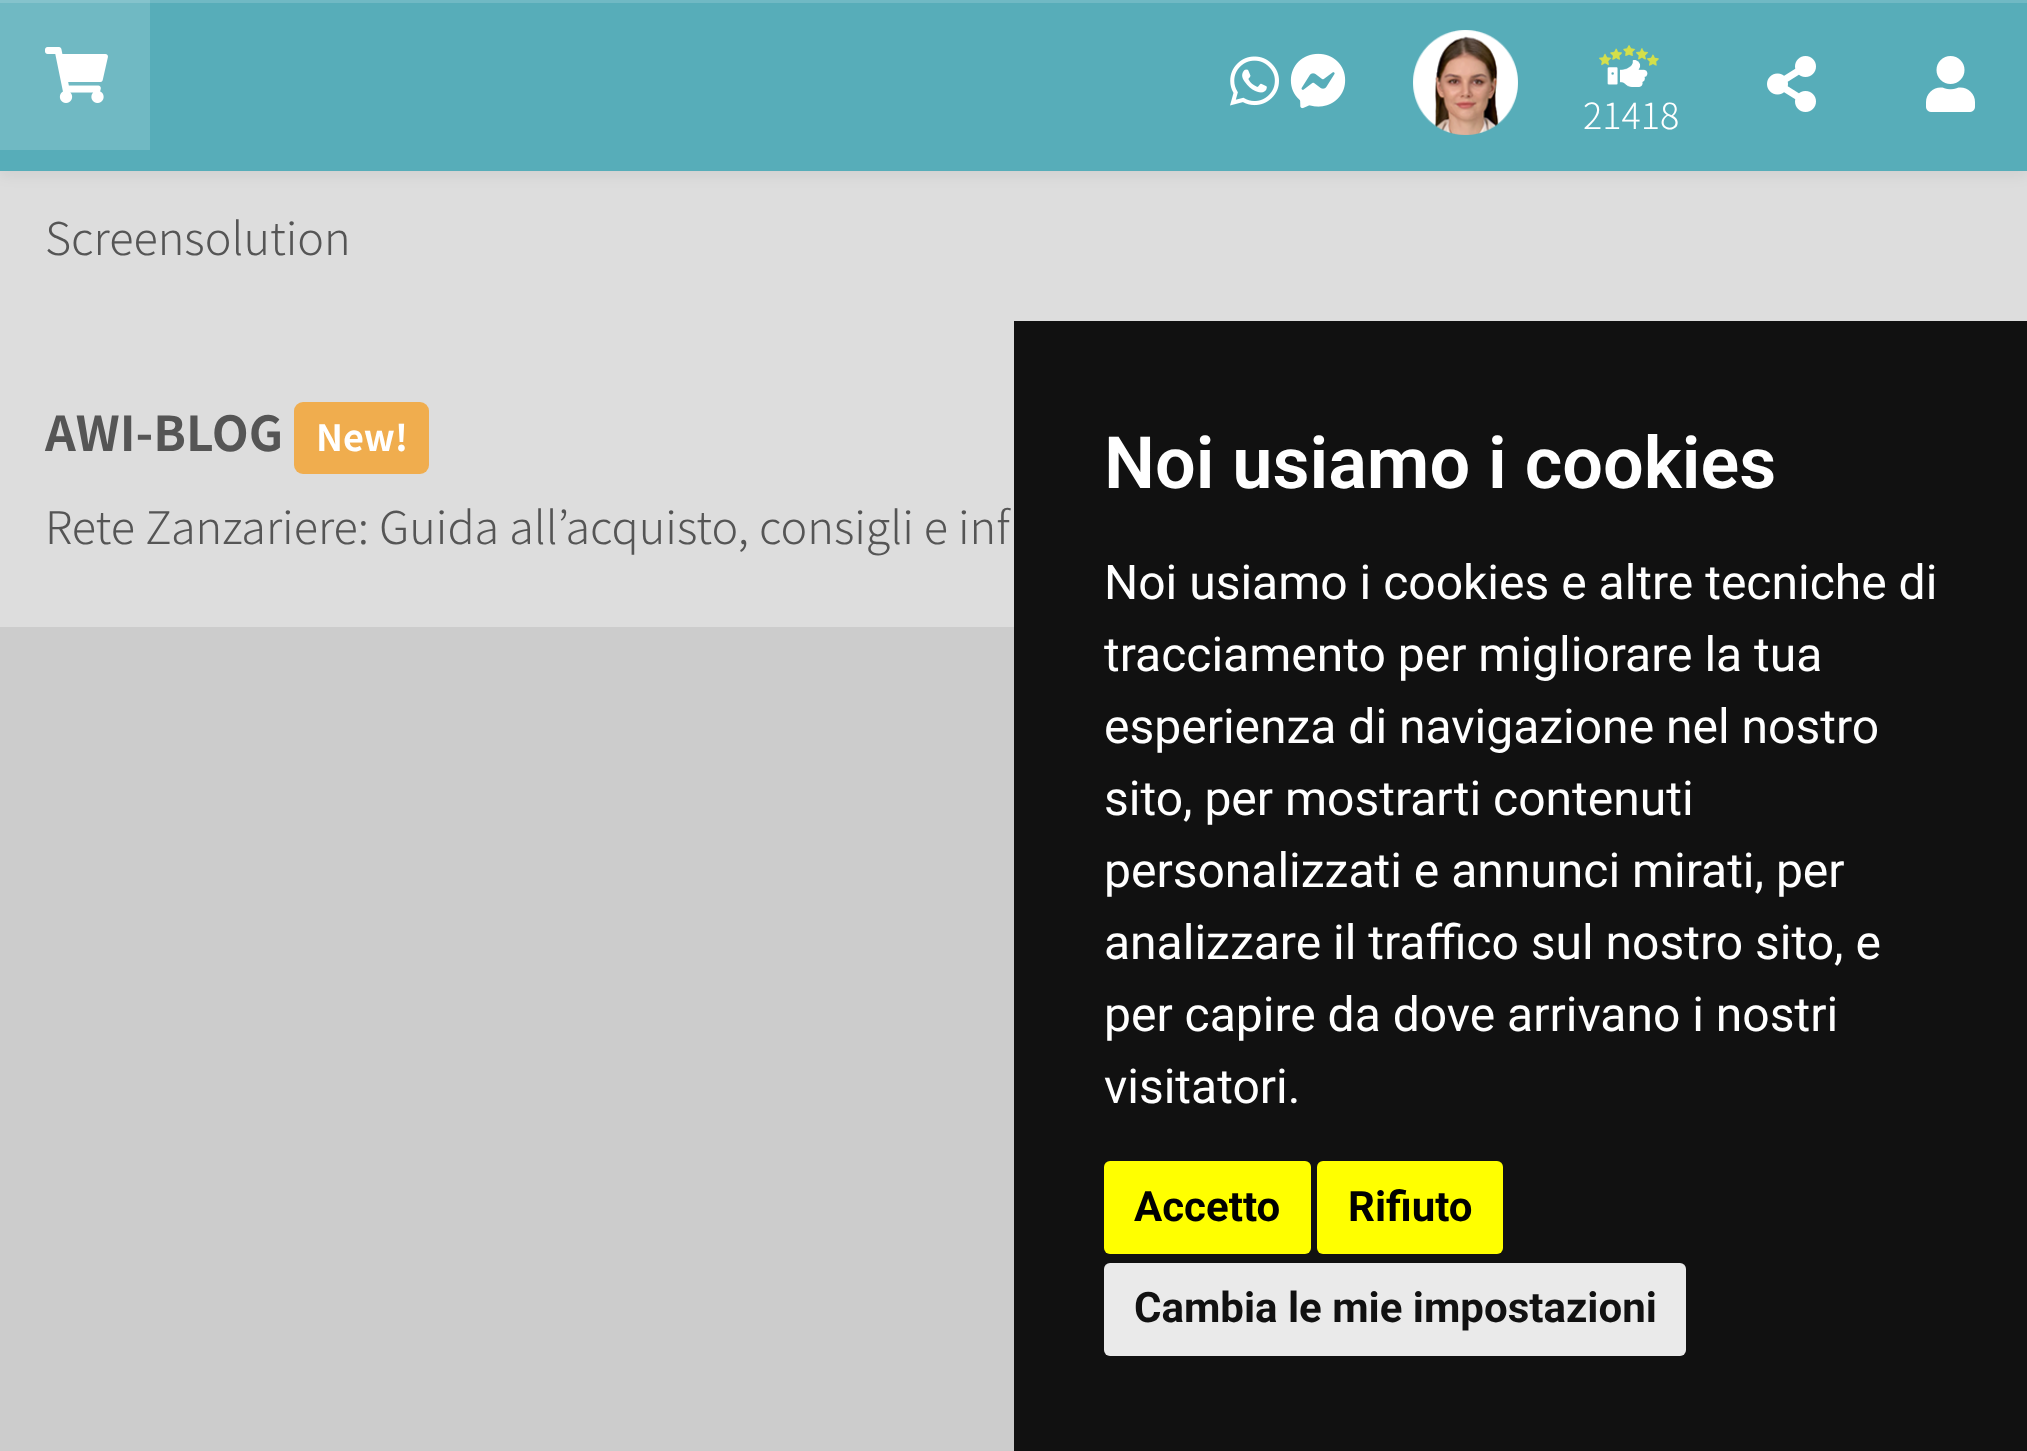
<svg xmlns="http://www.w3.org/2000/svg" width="2027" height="1451">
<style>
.a{font:300 36px Noto Sans JP;fill:#fff}
.b{font:300 45px Noto Sans JP;fill:#555}
.c{font:bold 48px Noto Sans JP;fill:#555}
.d{font:bold 36px Noto Sans JP;fill:#fff}
.e{font:600 72px Roboto;fill:#fff}
.f{font:48px Roboto;fill:#fff}
.g{font:bold 42px Roboto;fill:#000}
.h{font:bold 42px Roboto;fill:#111}
</style>
<rect width="100%" height="100%" fill="#ddd"/>
<path fill="#00000012" filter="blur(7.5px)" d="M0 3h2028v171H0z"/>
<path fill="#57adb9" d="M0 3h2027v168H0z"/>
<path fill="#70b9c4" d="M0 0h2027v3H0z"/>
<path fill="#ffffff26" d="M0 0h150v150H0z"/>
<image href="1.png" x="45" y="47" width="63" height="56"/>
<image href="2.png" x="1926" y="56" width="49" height="56"/>
<image href="3.png" x="1230" y="56" width="49" height="50"/>
<image href="4.png" x="1290" y="53" width="56" height="56"/>
<image href="5.png" x="1413" y="30" width="105" height="105"/>
<image href="6.png" x="1767" y="56" width="49" height="56"/>
<image href="7.png" x="1599" y="45" width="60" height="42"/>
<rect fill="#f0ad4e" x="294" y="402" width="135" height="72" rx="9"/>
<path fill="#ccc" d="M0 627h1014v824H0z"/>
<path fill="#111" d="M1014 321h1013v1130H1014z"/>
<rect fill="#ff0" x="1104" y="1161" width="207" height="93" rx="6"/>
<rect fill="#ff0" x="1317" y="1161" width="186" height="93" rx="6"/>
<rect fill="#eaeaea" x="1104" y="1263" width="582" height="93" rx="6"/>
<text class="a" x="1583" y="129">21418</text>
<text class="b" x="45" y="255">Screensolution</text>
<text class="c" x="45" y="451">AWI-BLOG</text>
<text class="d" x="316" y="451">New!</text>
<text class="b" x="45" y="544">Rete Zanzariere: Guida all’acquisto, consigli e inf</text>
<text class="e" x="1104" y="488">Noi usiamo i cookies</text>
<text class="f" x="1104" y="599">Noi usiamo i cookies e altre tecniche di</text>
<text class="f" x="1104" y="671">tracciamento per migliorare la tua</text>
<text class="f" x="1104" y="743">esperienza di navigazione nel nostro</text>
<text class="f" x="1104" y="815">sito, per mostrarti contenuti</text>
<text class="f" x="1104" y="887">personalizzati e annunci mirati, per</text>
<text class="f" x="1104" y="959">analizzare il traffico sul nostro sito, e</text>
<text class="f" x="1104" y="1031">per capire da dove arrivano i nostri</text>
<text class="f" x="1104" y="1103">visitatori.</text>
<text class="g" x="1134" y="1221">Accetto</text>
<text class="g" x="1348" y="1221">Rifiuto</text>
<text class="h" x="1134" y="1322">Cambia le mie impostazioni</text>
</svg>
